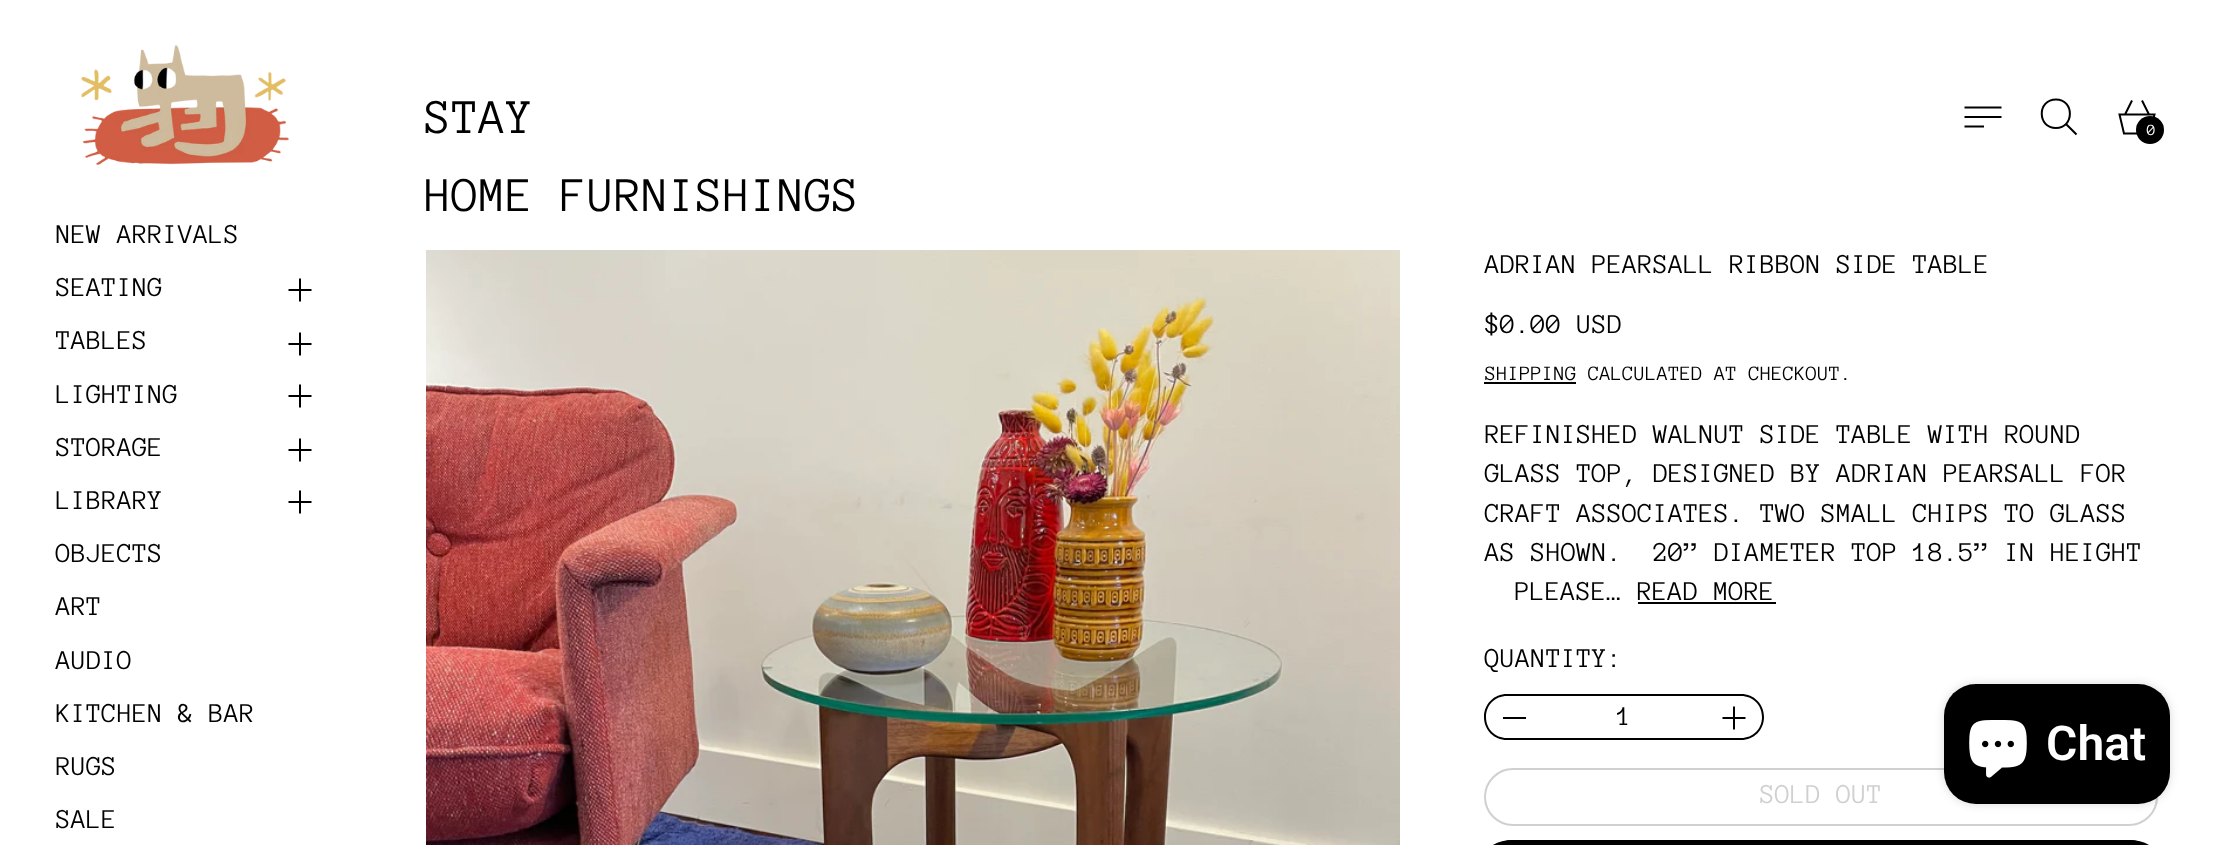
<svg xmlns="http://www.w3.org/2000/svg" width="2214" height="845">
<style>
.a{font:28px Anonymous Pro;fill:#000}
.b{font:49.75px Anonymous Pro;fill:#000}
.c{font:16px Anonymous Pro;fill:#fff}
.d{font:21px Anonymous Pro;fill:#000}
.e{font:28px Anonymous Pro;fill:#d0d0d0}
.f{font:600 48px Roboto;fill:#fff}
</style>
<rect width="100%" height="100%" fill="#fff"/>
<image href="1.png" x="81" y="45" width="208" height="121"/>
<path fill="none" stroke="#000" stroke-width="2" stroke-linejoin="round" d="M288.5 290h23m-11.5-11.5v23"/>
<path fill="none" stroke="#000" stroke-width="2" stroke-linejoin="round" d="M288.5 344h23m-11.5-11.5v23"/>
<path fill="none" stroke="#000" stroke-width="2" stroke-linejoin="round" d="M288.5 396h23m-11.5-11.5v23"/>
<path fill="none" stroke="#000" stroke-width="2" stroke-linejoin="round" d="M288.5 450h23m-11.5-11.5v23"/>
<path fill="none" stroke="#000" stroke-width="2" stroke-linejoin="round" d="M288.5 502h23m-11.5-11.5v23"/>
<path fill="none" stroke="#000" stroke-width="2" stroke-linecap="square" d="M1965.5 107.5h35m-35 19h17.5m-17.5-9.5h35"/>
<path fill="none" stroke="#000" stroke-width="2" d="M2056 128c18.5 0 18.5-28.5 0-28.5c-19 0-19 28.5 0 28.5zm10-4l10.5 10.5"/>
<path fill="none" stroke="#000" stroke-width="2" d="M2124 133.5l-4.5-19h35l-4.5 19zm1-19l7-14m17 14l-7-14"/>
<circle fill="#000" cx="2150" cy="130" r="14"/>
<image href="2.png" x="426" y="250" width="974" height="595"/>
<path fill="#000" d="M1484 382h92v2H1484z"/>
<path fill="#000" d="M1638 602h138v2H1638z"/>
<path fill="#000" fill-rule="evenodd" d="M1507 694h35v46h-35c-13 0-23-10-23-23c0-13 10-23 23-23zm0 2h35v42h-35c-12 0-21-9-21-21c0-12 9-21 21-21z"/>
<path fill="#000" d="M1503 717h23v2H1503z"/>
<path fill="#000" d="M1542 694h164v2H1542z"/>
<path fill="#000" d="M1542 738h164v2H1542z"/>
<path fill="#000" fill-rule="evenodd" d="M1706 694h35c13 0 23 10 23 23c0 13-10 23-23 23h-35zm0 2h35c12 0 21 9 21 21c0 12-9 21-21 21h-35z"/>
<path fill="none" stroke="#000" stroke-width="2" stroke-linejoin="round" d="M1722.5 718h23m-11.5-11.5v23"/>
<rect fill="none" stroke="#d0d0d0" stroke-width="2" x="1485" y="769" width="672" height="56" rx="28"/>
<path fill="#000" d="M1513 840h616c16 0 29 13 29 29v-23h-674v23c0-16 13-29 29-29z"/>
<rect fill="none" stroke="#000" stroke-width="2" x="1485" y="841" width="672" height="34" rx="28"/>
<rect fill="#00000026" filter="blur(5px)" x="1944" y="684" width="226" height="120" rx="32"/>
<rect fill="#000" x="1944" y="684" width="226" height="120" rx="32"/>
<image href="3.png" x="1969" y="720" width="58" height="58"/>
<text class="a" x="56" y="243">NEW ARRIVALS</text>
<text class="a" x="56" y="296">SEATING</text>
<text class="a" x="56" y="349">TABLES</text>
<text class="a" x="56" y="403">LIGHTING</text>
<text class="a" x="56" y="456">STORAGE</text>
<text class="a" x="56" y="509">LIBRARY</text>
<text class="a" x="56" y="562">OBJECTS</text>
<text class="a" x="56" y="615">ART</text>
<text class="a" x="56" y="669">AUDIO</text>
<text class="a" x="56" y="722">KITCHEN &amp; BAR</text>
<text class="a" x="56" y="775">RUGS</text>
<text class="a" x="56" y="828">SALE</text>
<text class="b" x="425" y="133">STAY</text>
<text class="b" x="425" y="211">HOME FURNISHINGS</text>
<text class="c" x="2147" y="135">0</text>
<text class="a" x="1485" y="273">ADRIAN PEARSALL RIBBON SIDE TABLE</text>
<text class="a" x="1485" y="333">$0.00 USD</text>
<text class="d" x="1485" y="380">SHIPPING CALCULATED AT CHECKOUT.</text>
<text class="a" x="1485" y="443">REFINISHED WALNUT SIDE TABLE WITH ROUND</text>
<text class="a" x="1485" y="482">GLASS TOP, DESIGNED BY ADRIAN PEARSALL FOR</text>
<text class="a" x="1485" y="522">CRAFT ASSOCIATES. TWO SMALL CHIPS TO GLASS</text>
<text class="a" xml:space="preserve" x="1485" y="561">AS SHOWN.  20” DIAMETER TOP 18.5” IN HEIGHT</text>
<text class="a" x="1515" y="600">PLEASE… READ MORE</text>
<text class="a" x="1485" y="667">QUANTITY:</text>
<text class="a" x="1617" y="725">1</text>
<text class="e" x="1760" y="803">SOLD OUT</text>
<text class="f" x="2046" y="760">Chat</text>
</svg>
